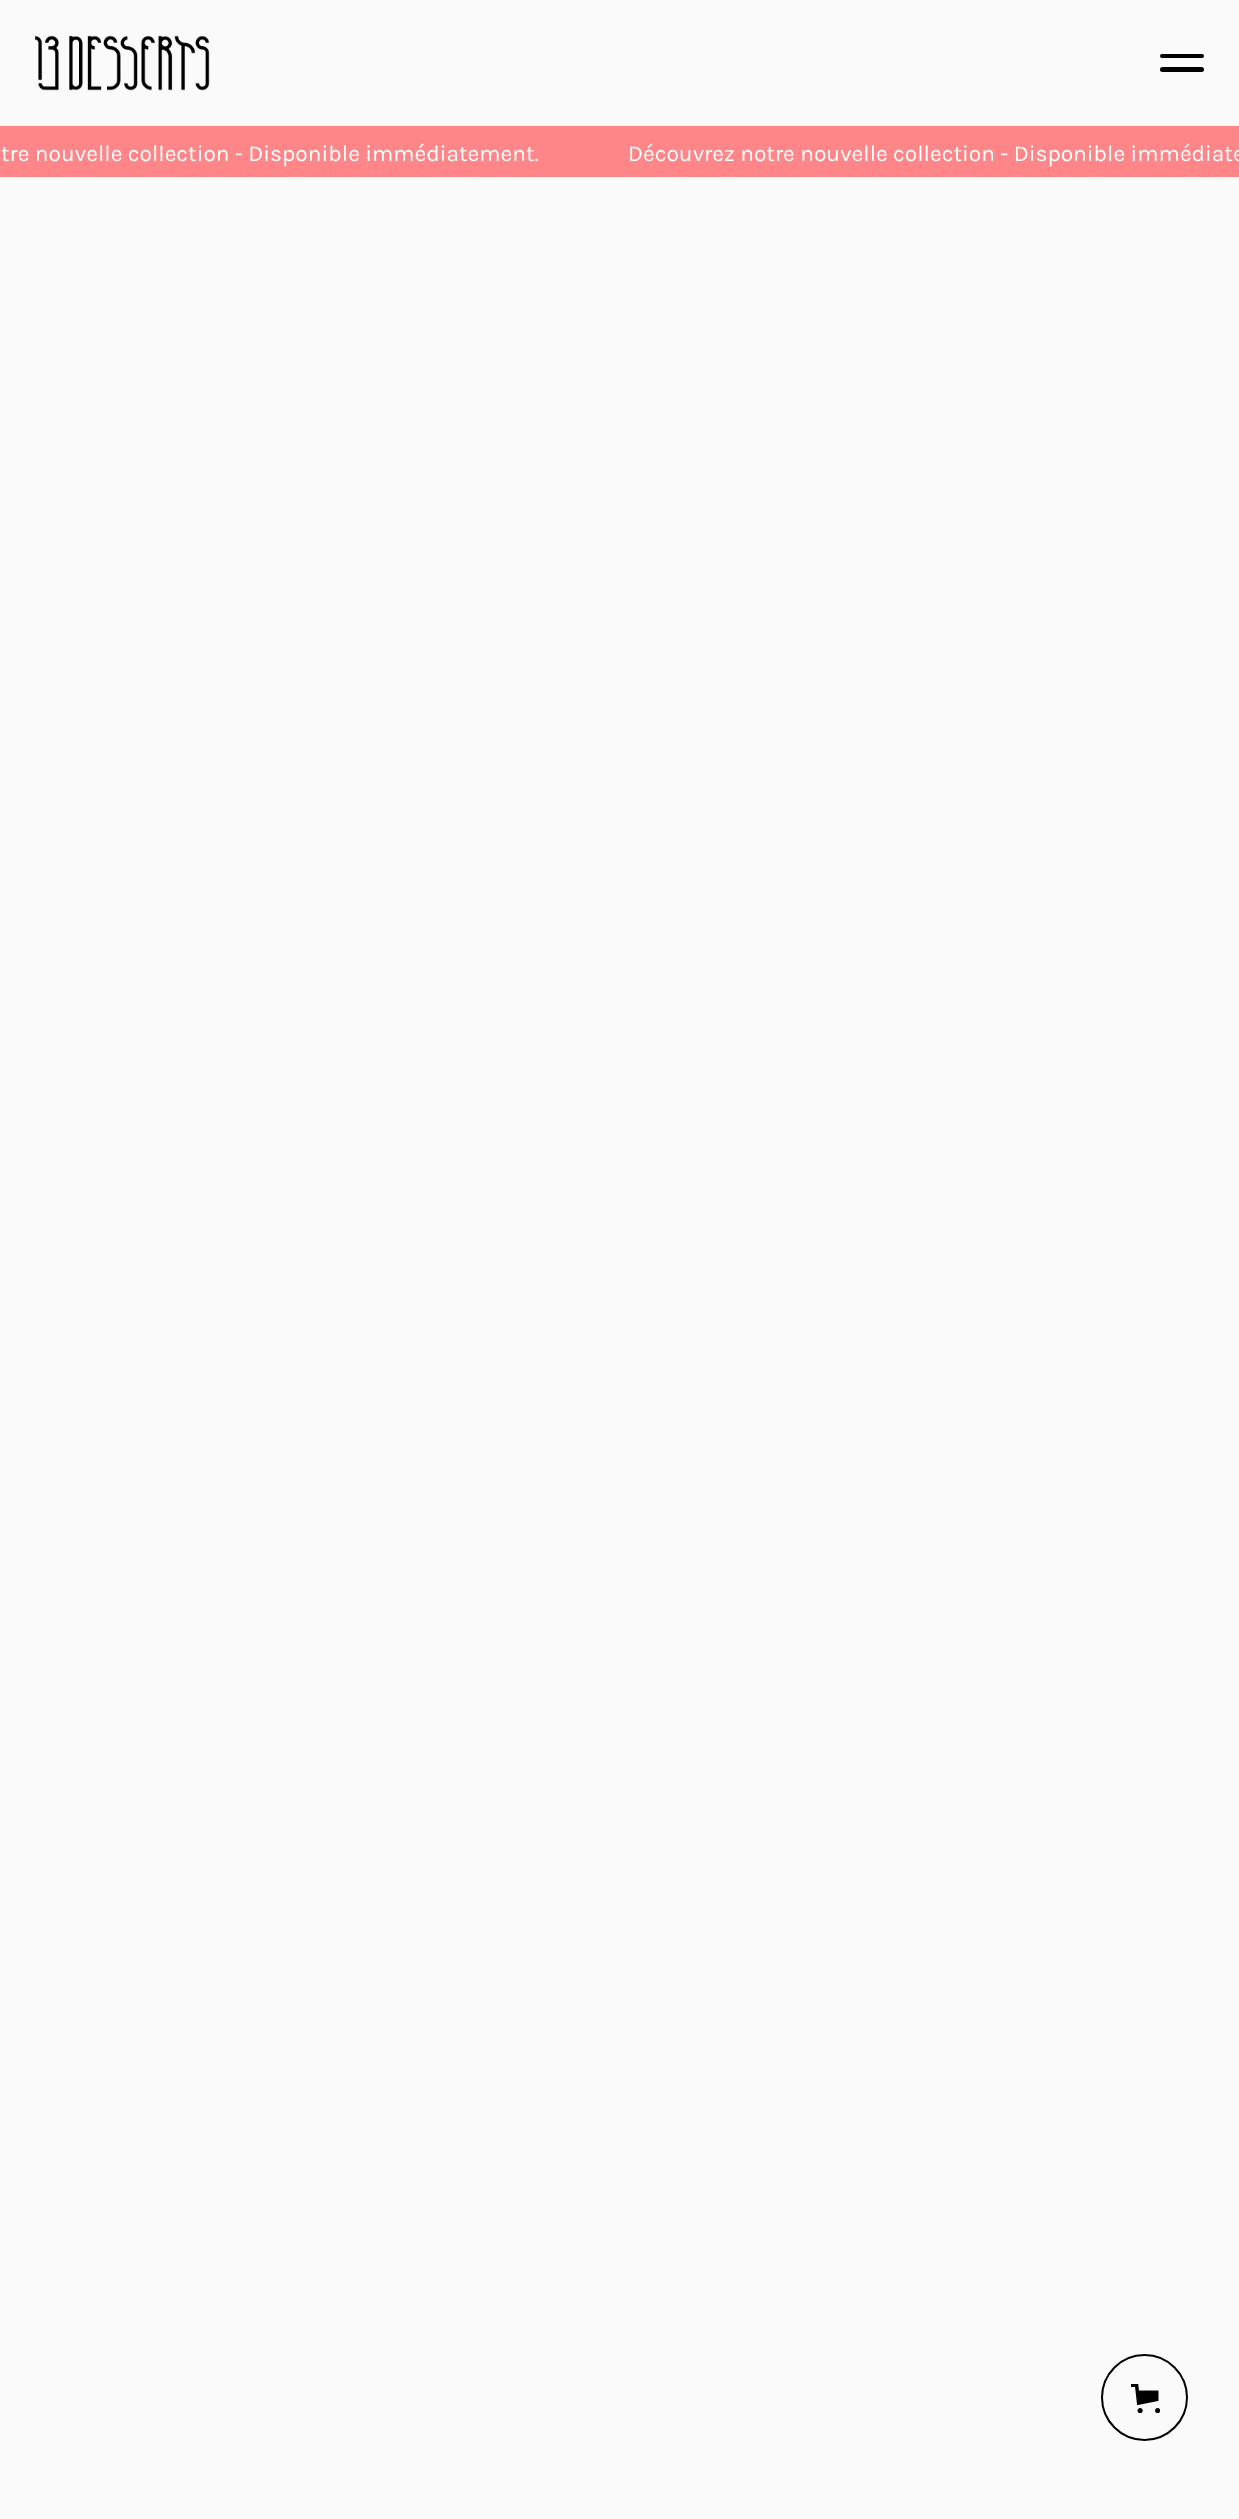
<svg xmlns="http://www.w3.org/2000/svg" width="1239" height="2519">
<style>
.a{font:22.75px Karla;fill:#fff}
</style>
<rect width="100%" height="100%" fill="#fafafa"/>
<image href="1.png" x="35" y="35" width="175" height="56"/>
<rect fill="#000" x="1160" y="54" width="44" height="4" rx="2"/>
<rect fill="#000" x="1160" y="67" width="44" height="5" rx="2.5"/>
<path fill="#ff8688" d="M0 126h1239v51H0z"/>
<circle fill="none" stroke="#000" stroke-width="2" cx="1144.5" cy="2397.5" r="42.5"/>
<image href="2.png" x="1131" y="2384" width="29" height="29"/>
<text class="a" x="1" y="161">tre nouvelle collection - Disponible immédiatement.</text>
<text class="a" x="628" y="161">Découvrez notre nouvelle collection - Disponible immédiate</text>
</svg>
